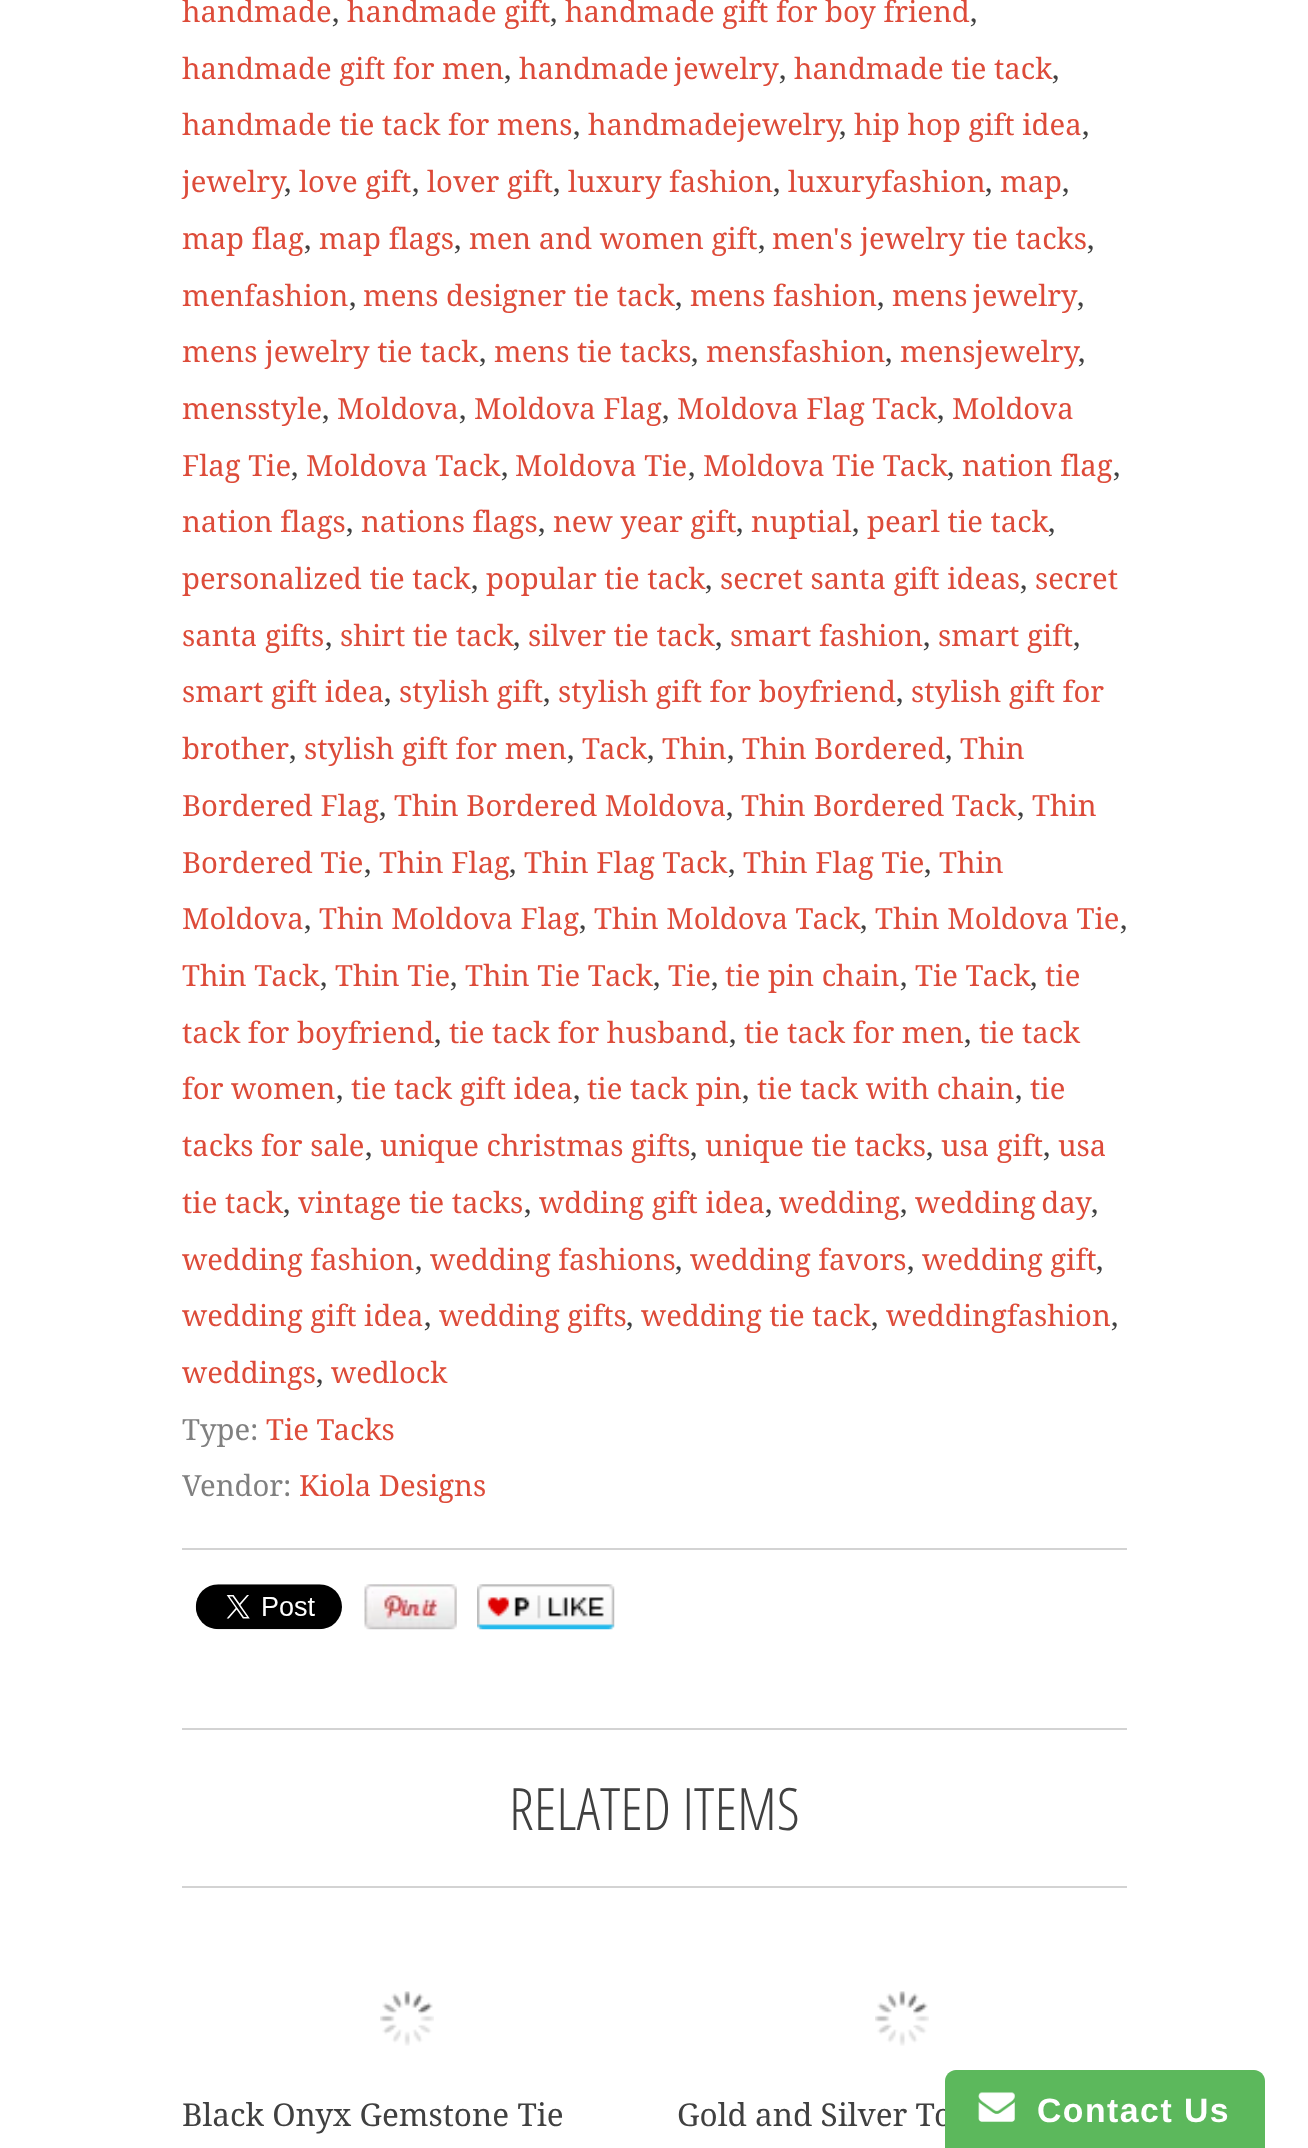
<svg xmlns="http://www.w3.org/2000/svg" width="1308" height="2148">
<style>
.a{font:29.25px Droid Serif;fill:#dd4b39}
.b{font:29.25px Droid Serif;fill:#404040}
.c{font:29.25px Droid Serif;fill:#808080}
.d{font:300 58.5px Open Sans Condensed;fill:#404040}
.e{font:31.5px Droid Serif;fill:#404040}
.f{font:bold 33.75px Liberation Sans;letter-spacing:1.5px;fill:#fff}
</style>
<rect width="100%" height="100%" fill="#fff"/>
<path fill="#d3d3d3" d="M182 1548h945v2H182z"/>
<image href="1.png" x="195" y="1584" width="147" height="46"/>
<image href="2.png" x="364" y="1584" width="93" height="46"/>
<image href="3.png" x="477" y="1584" width="138" height="46"/>
<path fill="#d3d3d3" d="M182 1728h945v2H182z"/>
<path fill="#d3d3d3" d="M182 1886h945v2H182z"/>
<image href="4.png" x="380" y="1991" width="54" height="55"/>
<image href="4.png" x="875" y="1991" width="54" height="55"/>
<text class="a" x="182" y="22">handmade</text>
<text class="b" x="332" y="22">,</text>
<text class="a" x="347" y="22">handmade gift</text>
<text class="b" x="550" y="22">,</text>
<text class="a" x="565" y="22">handmade gift for boy friend</text>
<text class="b" x="970" y="22">,</text>
<text class="a" x="182" y="79">handmade gift for men</text>
<text class="b" x="504" y="79">,</text>
<text class="a" x="519" y="79" word-spacing="-2">handmade jewelry</text>
<text class="b" x="779" y="79">,</text>
<text class="a" x="794" y="79">handmade tie tack</text>
<text class="b" x="1052" y="79">,</text>
<text class="a" x="182" y="135">handmade tie tack for mens</text>
<text class="b" x="573" y="135">,</text>
<text class="a" x="588" y="135">handmadejewelry</text>
<text class="b" x="839" y="135">,</text>
<text class="a" x="854" y="135">hip hop gift idea</text>
<text class="b" x="1082" y="135">,</text>
<text class="a" x="182" y="192">jewelry</text>
<text class="b" x="284" y="192">,</text>
<text class="a" x="299" y="192">love gift</text>
<text class="b" x="412" y="192">,</text>
<text class="a" x="427" y="192">lover gift</text>
<text class="b" x="553" y="192">,</text>
<text class="a" x="568" y="192">luxury fashion</text>
<text class="b" x="773" y="192">,</text>
<text class="a" x="788" y="192">luxuryfashion</text>
<text class="b" x="985" y="192">,</text>
<text class="a" x="1000" y="192">map</text>
<text class="b" x="1062" y="192">,</text>
<text class="a" x="182" y="249">map flag</text>
<text class="b" x="304" y="249">,</text>
<text class="a" x="319" y="249">map flags</text>
<text class="b" x="454" y="249">,</text>
<text class="a" x="469" y="249">men and women gift</text>
<text class="b" x="758" y="249">,</text>
<text class="a" x="772" y="249">men's jewelry tie tacks</text>
<text class="b" x="1087" y="249">,</text>
<text class="a" x="182" y="306">menfashion</text>
<text class="b" x="349" y="306">,</text>
<text class="a" x="363" y="306">mens designer tie tack</text>
<text class="b" x="675" y="306">,</text>
<text class="a" x="690" y="306">mens fashion</text>
<text class="b" x="877" y="306">,</text>
<text class="a" x="892" y="306" word-spacing="-2">mens jewelry</text>
<text class="b" x="1077" y="306">,</text>
<text class="a" x="182" y="362">mens jewelry tie tack</text>
<text class="b" x="479" y="362">,</text>
<text class="a" x="494" y="362">mens tie tacks</text>
<text class="b" x="691" y="362">,</text>
<text class="a" x="706" y="362">mensfashion</text>
<text class="b" x="885" y="362">,</text>
<text class="a" x="900" y="362">mensjewelry</text>
<text class="b" x="1078" y="362">,</text>
<text class="a" x="182" y="419">mensstyle</text>
<text class="b" x="322" y="419">,</text>
<text class="a" x="337" y="419">Moldova</text>
<text class="b" x="459" y="419">,</text>
<text class="a" x="474" y="419">Moldova Flag</text>
<text class="b" x="662" y="419">,</text>
<text class="a" x="677" y="419">Moldova Flag Tack</text>
<text class="b" x="937" y="419">,</text>
<text class="a" x="952" y="419">Moldova</text>
<text class="a" x="182" y="476">Flag Tie</text>
<text class="b" x="291" y="476">,</text>
<text class="a" x="306" y="476">Moldova Tack</text>
<text class="b" x="501" y="476">,</text>
<text class="a" x="515" y="476">Moldova Tie</text>
<text class="b" x="688" y="476">,</text>
<text class="a" x="703" y="476">Moldova Tie Tack</text>
<text class="b" x="947" y="476">,</text>
<text class="a" x="962" y="476">nation flag</text>
<text class="b" x="1113" y="476">,</text>
<text class="a" x="182" y="532">nation flags</text>
<text class="b" x="346" y="532">,</text>
<text class="a" x="361" y="532">nations flags</text>
<text class="b" x="538" y="532">,</text>
<text class="a" x="553" y="532">new year gift</text>
<text class="b" x="736" y="532">,</text>
<text class="a" x="751" y="532">nuptial</text>
<text class="b" x="852" y="532">,</text>
<text class="a" x="867" y="532">pearl tie tack</text>
<text class="b" x="1048" y="532">,</text>
<text class="a" x="182" y="589">personalized tie tack</text>
<text class="b" x="471" y="589">,</text>
<text class="a" x="486" y="589">popular tie tack</text>
<text class="b" x="705" y="589">,</text>
<text class="a" x="720" y="589">secret santa gift ideas</text>
<text class="b" x="1020" y="589">,</text>
<text class="a" x="1035" y="589">secret</text>
<text class="a" x="182" y="646">santa gifts</text>
<text class="b" x="325" y="646">,</text>
<text class="a" x="340" y="646">shirt tie tack</text>
<text class="b" x="513" y="646">,</text>
<text class="a" x="528" y="646">silver tie tack</text>
<text class="b" x="715" y="646">,</text>
<text class="a" x="730" y="646">smart fashion</text>
<text class="b" x="923" y="646">,</text>
<text class="a" x="938" y="646">smart gift</text>
<text class="b" x="1073" y="646">,</text>
<text class="a" x="182" y="702">smart gift idea</text>
<text class="b" x="384" y="702">,</text>
<text class="a" x="399" y="702">stylish gift</text>
<text class="b" x="543" y="702">,</text>
<text class="a" x="558" y="702">stylish gift for boyfriend</text>
<text class="b" x="896" y="702">,</text>
<text class="a" x="911" y="702">stylish gift for</text>
<text class="a" x="182" y="759">brother</text>
<text class="b" x="289" y="759">,</text>
<text class="a" x="304" y="759">stylish gift for men</text>
<text class="b" x="567" y="759">,</text>
<text class="a" x="582" y="759">Tack</text>
<text class="b" x="647" y="759">,</text>
<text class="a" x="662" y="759">Thin</text>
<text class="b" x="727" y="759">,</text>
<text class="a" x="742" y="759">Thin Bordered</text>
<text class="b" x="945" y="759">,</text>
<text class="a" x="960" y="759">Thin</text>
<text class="a" x="182" y="816">Bordered Flag</text>
<text class="b" x="379" y="816">,</text>
<text class="a" x="394" y="816">Thin Bordered Moldova</text>
<text class="b" x="726" y="816">,</text>
<text class="a" x="741" y="816">Thin Bordered Tack</text>
<text class="b" x="1017" y="816">,</text>
<text class="a" x="1032" y="816">Thin</text>
<text class="a" x="182" y="873">Bordered Tie</text>
<text class="b" x="364" y="873">,</text>
<text class="a" x="379" y="873">Thin Flag</text>
<text class="b" x="509" y="873">,</text>
<text class="a" x="524" y="873">Thin Flag Tack</text>
<text class="b" x="728" y="873">,</text>
<text class="a" x="743" y="873">Thin Flag Tie</text>
<text class="b" x="924" y="873">,</text>
<text class="a" x="939" y="873">Thin</text>
<text class="a" x="182" y="929">Moldova</text>
<text class="b" x="304" y="929">,</text>
<text class="a" x="319" y="929">Thin Moldova Flag</text>
<text class="b" x="579" y="929">,</text>
<text class="a" x="594" y="929">Thin Moldova Tack</text>
<text class="b" x="860" y="929">,</text>
<text class="a" x="875" y="929">Thin Moldova Tie</text>
<text class="b" x="1120" y="929">,</text>
<text class="a" x="182" y="986">Thin Tack</text>
<text class="b" x="320" y="986">,</text>
<text class="a" x="335" y="986">Thin Tie</text>
<text class="b" x="450" y="986">,</text>
<text class="a" x="465" y="986">Thin Tie Tack</text>
<text class="b" x="653" y="986">,</text>
<text class="a" x="668" y="986">Tie</text>
<text class="b" x="711" y="986">,</text>
<text class="a" x="725" y="986">tie pin chain</text>
<text class="b" x="900" y="986">,</text>
<text class="a" x="915" y="986">Tie Tack</text>
<text class="b" x="1030" y="986">,</text>
<text class="a" x="1045" y="986">tie</text>
<text class="a" x="182" y="1043">tack for boyfriend</text>
<text class="b" x="434" y="1043">,</text>
<text class="a" x="449" y="1043">tie tack for husband</text>
<text class="b" x="729" y="1043">,</text>
<text class="a" x="744" y="1043">tie tack for men</text>
<text class="b" x="964" y="1043">,</text>
<text class="a" x="979" y="1043">tie tack</text>
<text class="a" x="182" y="1099">for women</text>
<text class="b" x="336" y="1099">,</text>
<text class="a" x="351" y="1099">tie tack gift idea</text>
<text class="b" x="573" y="1099">,</text>
<text class="a" x="587" y="1099">tie tack pin</text>
<text class="b" x="742" y="1099">,</text>
<text class="a" x="757" y="1099">tie tack with chain</text>
<text class="b" x="1015" y="1099">,</text>
<text class="a" x="1030" y="1099">tie</text>
<text class="a" x="182" y="1156">tacks for sale</text>
<text class="b" x="365" y="1156">,</text>
<text class="a" x="380" y="1156">unique christmas gifts</text>
<text class="b" x="690" y="1156">,</text>
<text class="a" x="705" y="1156">unique tie tacks</text>
<text class="b" x="926" y="1156">,</text>
<text class="a" x="941" y="1156">usa gift</text>
<text class="b" x="1043" y="1156">,</text>
<text class="a" x="1058" y="1156">usa</text>
<text class="a" x="182" y="1213">tie tack</text>
<text class="b" x="283" y="1213">,</text>
<text class="a" x="298" y="1213">vintage tie tacks</text>
<text class="b" x="524" y="1213">,</text>
<text class="a" x="539" y="1213">wdding gift idea</text>
<text class="b" x="765" y="1213">,</text>
<text class="a" x="779" y="1213">wedding</text>
<text class="b" x="900" y="1213">,</text>
<text class="a" x="915" y="1213" word-spacing="-2">wedding day</text>
<text class="b" x="1091" y="1213">,</text>
<text class="a" x="182" y="1270">wedding fashion</text>
<text class="b" x="415" y="1270">,</text>
<text class="a" x="430" y="1270">wedding fashions</text>
<text class="b" x="675" y="1270">,</text>
<text class="a" x="690" y="1270">wedding favors</text>
<text class="b" x="907" y="1270">,</text>
<text class="a" x="922" y="1270">wedding gift</text>
<text class="b" x="1096" y="1270">,</text>
<text class="a" x="182" y="1326">wedding gift idea</text>
<text class="b" x="424" y="1326">,</text>
<text class="a" x="439" y="1326">wedding gifts</text>
<text class="b" x="626" y="1326">,</text>
<text class="a" x="641" y="1326">wedding tie tack</text>
<text class="b" x="871" y="1326">,</text>
<text class="a" x="886" y="1326">weddingfashion</text>
<text class="b" x="1111" y="1326">,</text>
<text class="a" x="182" y="1383">weddings</text>
<text class="b" x="316" y="1383">,</text>
<text class="a" x="331" y="1383">wedlock</text>
<text class="c" x="182" y="1440">Type:</text>
<text class="a" x="266" y="1440">Tie Tacks</text>
<text class="c" x="182" y="1496">Vendor:</text>
<text class="a" x="299" y="1496">Kiola Designs</text>
<text class="d" x="509" y="1830">RELATED ITEMS</text>
<text class="e" x="182" y="2126">Black Onyx Gemstone Tie</text>
<text class="e" x="677" y="2126">Gold and Silver To</text>
<path fill="#5cb85c" d="M956 2070h298c6 0 11 5 11 11v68h-320v-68c0-6 5-11 11-11z"/>
<image href="5.png" x="978" y="2092" width="37" height="30"/>
<text class="f" x="1037" y="2122">Contact Us</text>
</svg>
